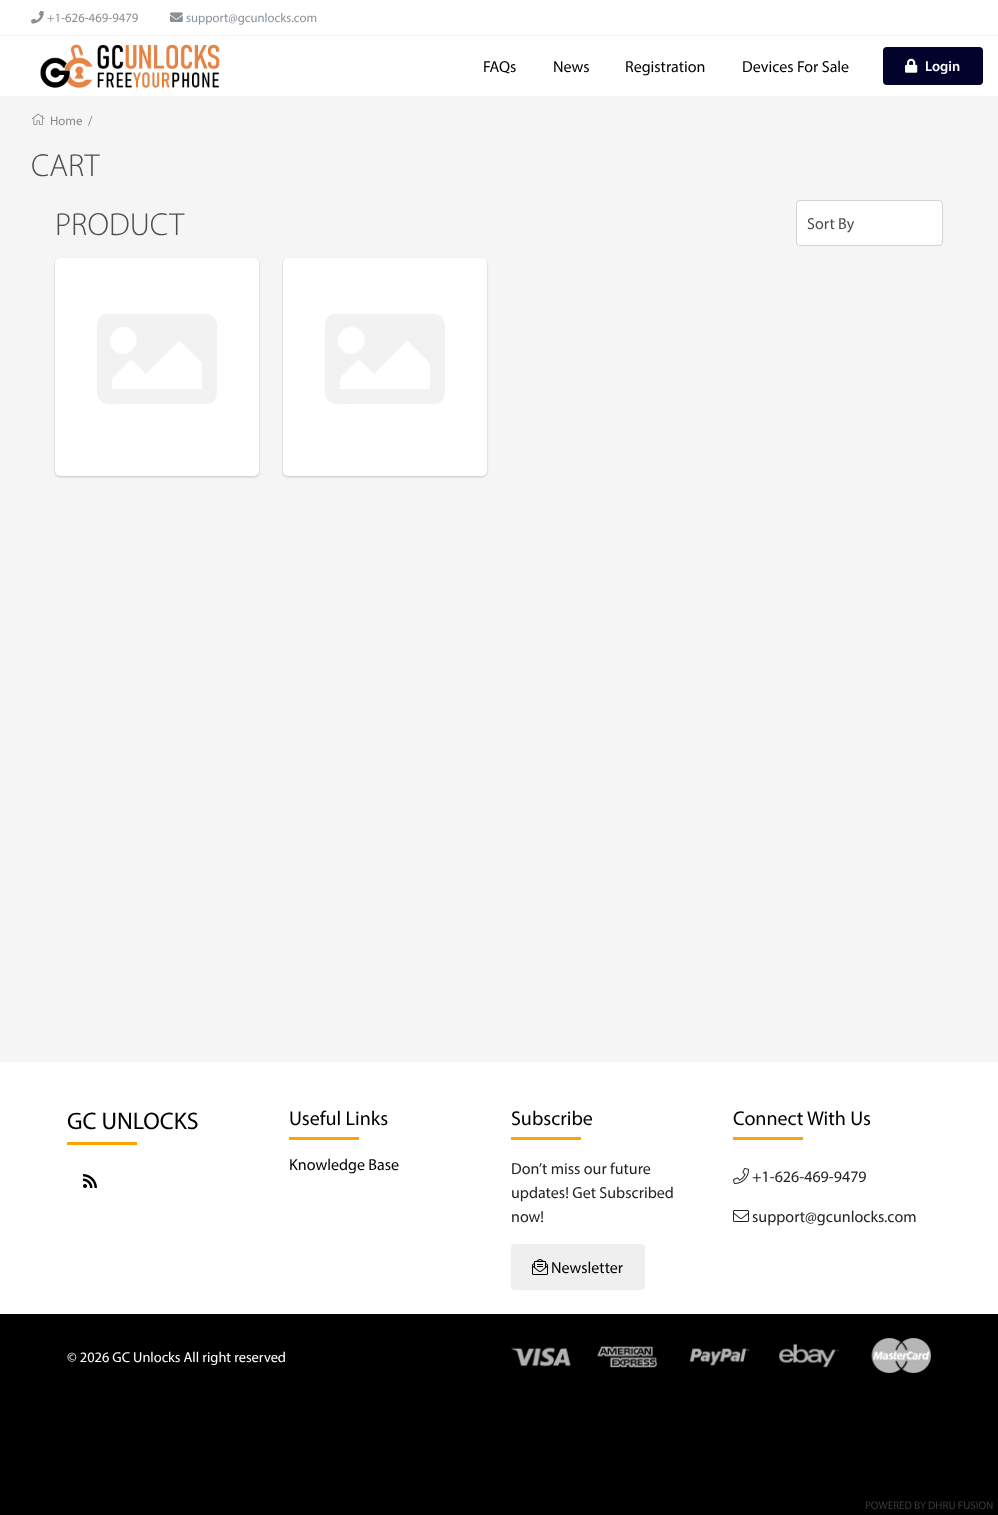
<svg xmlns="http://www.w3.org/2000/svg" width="998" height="1515">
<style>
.a{font:12.75px Myriad;fill:#899197}
.b{font:16px Myriad;fill:#000}
.c{font:600 14.4px Myriad;fill:#fff}
.d{font:12.75px Myriad;fill:#888}
.e{font:300 32px Myriad;fill:#4b4f52}
.f{font:16px Myriad;fill:#4b4f52}
.g{font:24px Myriad;fill:#000}
.h{font:20px Myriad;fill:#000}
.i{font:16px Myriad;fill:#212529}
.j{font:14.4px Myriad;fill:#fff}
.k{font:11px Myriad;fill:#3b3b3b}
</style>
<rect width="100%" height="100%" fill="#000"/>
<path fill="#fff" d="M0 0h998v96H0z"/>
<path fill="#f6f6f6" d="M0 35h998v1H0z"/>
<image href="1.png" x="31" y="10" width="13" height="14"/>
<image href="2.png" x="170" y="12" width="13" height="10"/>
<image href="3.png" x="40" y="44" width="180" height="44"/>
<rect fill="#02022d" x="883" y="47" width="100" height="38" rx="4"/>
<image href="4.png" x="905" y="58" width="13" height="15"/>
<path fill="#f5f5f5" d="M0 96h998v966H0z"/>
<image href="5.png" x="31" y="113" width="14" height="12"/>
<rect fill="#fff" stroke="#ced4da" x="796.5" y="200.5" width="146" height="45" rx="3.5"/>
<rect fill="#00000033" filter="blur(1px)" x="55" y="259" width="204" height="218" rx="5"/>
<rect fill="#fff" x="55" y="258" width="204" height="218" rx="5"/>
<path fill="#f2f2f2" d="M206 404h-82c-8 0-24 3-27-9v-59c0-8-2-22 11-22h100c11 2 9 14 9 22v46c0 8 2 22-11 22zm-73-73c-13-12-31 6-19 19c12 12 31-7 19-19zm-21 58h90v-26l-21-21c-1-1-2-1-3 0l-32 32l-13-13c-2-1-3-1-4 0l-17 17z"/>
<rect fill="#00000033" filter="blur(1px)" x="283" y="259" width="204" height="218" rx="5"/>
<rect fill="#fff" x="283" y="258" width="204" height="218" rx="5"/>
<path fill="#f2f2f2" d="M434 404h-82c-8 0-24 3-27-9v-59c0-8-2-22 11-22h100c11 2 9 14 9 22v46c0 8 2 22-11 22zm-73-73c-13-12-31 6-19 19c12 12 31-7 19-19zm-21 58h90v-26l-21-21c-1-1-2-1-3 0l-32 32l-13-13c-2-1-3-1-4 0l-17 17z"/>
<path fill="#fff" d="M0 1062h998v252H0z"/>
<path fill="#ffa302" d="M67 1142h70v3H67z"/>
<image href="6.png" x="83" y="1174" width="14" height="14"/>
<path fill="#ffa302" d="M289 1137h70v3H289z"/>
<path fill="#ffa302" d="M511 1137h70v3H511z"/>
<rect fill="#efefef" x="511" y="1244" width="134" height="46" rx="4"/>
<image href="7.png" x="532" y="1259" width="16" height="16"/>
<path fill="#ffa302" d="M733 1137h70v3H733z"/>
<image href="8.png" x="733" y="1168" width="16" height="16"/>
<image href="9.png" x="733" y="1210" width="16" height="12"/>
<image href="10.png" x="511" y="1338" width="420" height="35"/>
<text class="a" x="47" y="22">+1-626-469-9479</text>
<text class="a" x="186" y="22">support@gcunlocks.com</text>
<text class="b" x="483" y="72">FAQs</text>
<text class="b" x="553" y="72">News</text>
<text class="b" x="625" y="72">Registration</text>
<text class="b" x="742" y="72">Devices For Sale</text>
<text class="c" x="925" y="71">Login</text>
<text class="d" x="50" y="125">Home</text>
<text class="d" x="88" y="125">/</text>
<text class="e" x="31" y="176">CART</text>
<text class="e" x="55" y="235">PRODUCT</text>
<text class="f" x="807" y="229">Sort By</text>
<text class="g" x="67" y="1129">GC UNLOCKS</text>
<text class="h" x="289" y="1125">Useful Links</text>
<text class="b" x="289" y="1170">Knowledge Base</text>
<text class="h" x="511" y="1125">Subscribe</text>
<text class="i" x="511" y="1174">Don’t miss our future</text>
<text class="i" x="511" y="1198">updates! Get Subscribed</text>
<text class="i" x="511" y="1222">now!</text>
<text class="b" x="551" y="1273">Newsletter</text>
<text class="h" x="733" y="1125">Connect With Us</text>
<text class="i" x="752" y="1182">+1-626-469-9479</text>
<text class="i" x="752" y="1222">support@gcunlocks.com</text>
<text class="j" x="67" y="1362">© 2026 GC Unlocks All right reserved</text>
<text class="k" x="865" y="1509">POWERED BY</text>
<text class="k" x="928" y="1509">DHRU FUSION</text>
</svg>
